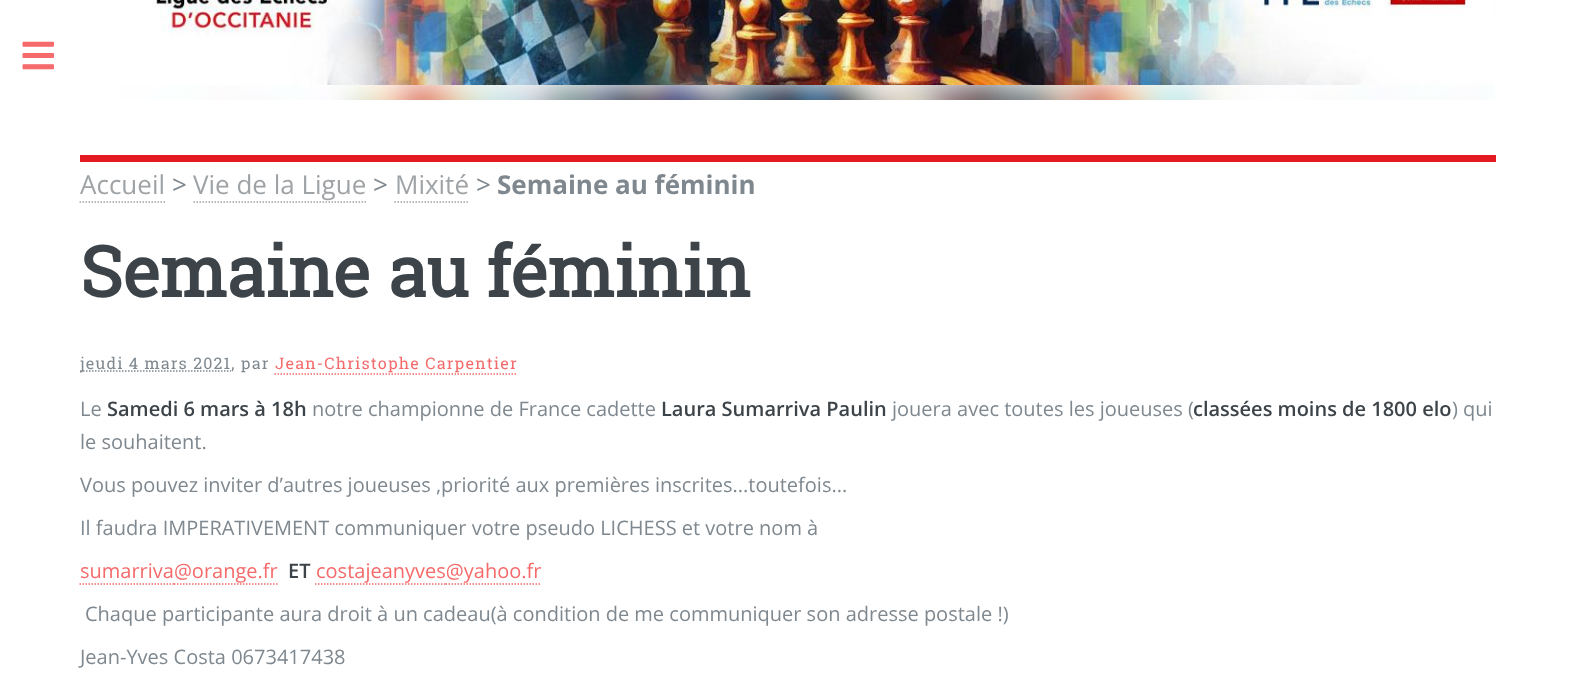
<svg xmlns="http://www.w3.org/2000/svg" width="1574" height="687">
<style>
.a{font:26px Open Sans;fill:#9fa3a6}
.b{font:26px Open Sans;fill:#7f888f}
.c{font:bold 26px Open Sans;fill:#7f888f}
.d{font:bold 70px Roboto Slab;fill:#3d4449}
.e{font:16px Roboto Slab;letter-spacing:1.2px;fill:#7f888f}
.f{font:16px Roboto Slab;letter-spacing:1.2px;fill:#f56a6a}
.g{font:20px Open Sans;fill:#7f888f}
.h{font:600 20px Open Sans;fill:#3d4449}
.i{font:20px Open Sans;fill:#f56a6a}
</style>
<rect width="100%" height="100%" fill="#fff"/>
<image href="1.png" x="22" y="41" width="32" height="29"/>
<path fill="#e51921" d="M80 155h1416v7H80z"/>
<image href="2.png" x="120" y="0" width="1375" height="100"/>
<image href="3.png" x="120" y="0" width="1374" height="85"/>
<path fill="none" stroke="#9fa3a6" stroke-width="1.5" stroke-dasharray="1.5 1.5" d="M79.5 202h85.5"/>
<path fill="none" stroke="#9fa3a6" stroke-width="1.5" stroke-dasharray="1.5 1.5" d="M193.5 202h172.5"/>
<path fill="none" stroke="#9fa3a6" stroke-width="1.5" stroke-dasharray="1.5 1.5" d="M394.5 202h75"/>
<path fill="none" stroke="#7f888f" stroke-width="1.5" stroke-dasharray="1.5 1.5" d="M80 371h151"/>
<path fill="none" stroke="#f56a6a" stroke-width="1.5" stroke-dasharray="1.5 1.5" d="M274.5 374h243"/>
<path fill="none" stroke="#f56a6a" stroke-width="1.5" stroke-dasharray="1.5 1.5" d="M79.5 584h94.5"/>
<path fill="none" stroke="#f56a6a" stroke-width="1.5" stroke-dasharray="1.5 1.5" d="M174 584h18"/>
<path fill="none" stroke="#f56a6a" stroke-width="1.5" stroke-dasharray="1.5 1.5" d="M192 584h85.5"/>
<path fill="none" stroke="#f56a6a" stroke-width="1.5" stroke-dasharray="1.5 1.5" d="M315 584h130.5"/>
<path fill="none" stroke="#f56a6a" stroke-width="1.5" stroke-dasharray="1.5 1.5" d="M445.5 584h18"/>
<path fill="none" stroke="#f56a6a" stroke-width="1.5" stroke-dasharray="1.5 1.5" d="M463.5 584h78"/>
<text class="a" x="80" y="194">Accueil</text>
<text class="b" x="172" y="194">&gt;</text>
<text class="a" x="193" y="194">Vie de la Ligue</text>
<text class="b" x="373" y="194">&gt;</text>
<text class="a" x="395" y="194">Mixité</text>
<text class="b" x="476" y="194">&gt;</text>
<text class="c" x="497" y="194">Semaine au féminin</text>
<text class="d" x="80" y="297">Semaine au féminin</text>
<text class="e" x="80" y="369">jeudi 4 mars 2021, par</text>
<text class="f" x="275" y="369">Jean-Christophe Carpentier</text>
<text class="g" x="80" y="416">Le</text>
<text class="h" x="107" y="416">Samedi 6 mars à 18h</text>
<text class="g" x="312" y="416">notre championne de France cadette</text>
<text class="h" x="661" y="416">Laura Sumarriva Paulin</text>
<text class="g" x="892" y="416">jouera avec toutes les joueuses (</text>
<text class="h" x="1193" y="416">classées moins de 1800 elo</text>
<text class="g" x="1452" y="416">) qui</text>
<text class="g" x="80" y="449">le souhaitent.</text>
<text class="g" x="80" y="492">Vous pouvez inviter d’autres joueuses ,priorité aux premières inscrites...toutefois...</text>
<text class="g" x="80" y="535">Il faudra IMPERATIVEMENT communiquer votre pseudo LICHESS et votre nom à</text>
<text class="i" x="80" y="578">sumarriva@orange.fr</text>
<text class="h" x="288" y="578">ET</text>
<text class="i" x="316" y="578">costajeanyves@yahoo.fr</text>
<text class="g" x="85" y="621">Chaque participante aura droit à un cadeau(à condition de me communiquer son adresse postale !)</text>
<text class="g" x="80" y="664">Jean-Yves Costa 0673417438</text>
</svg>
